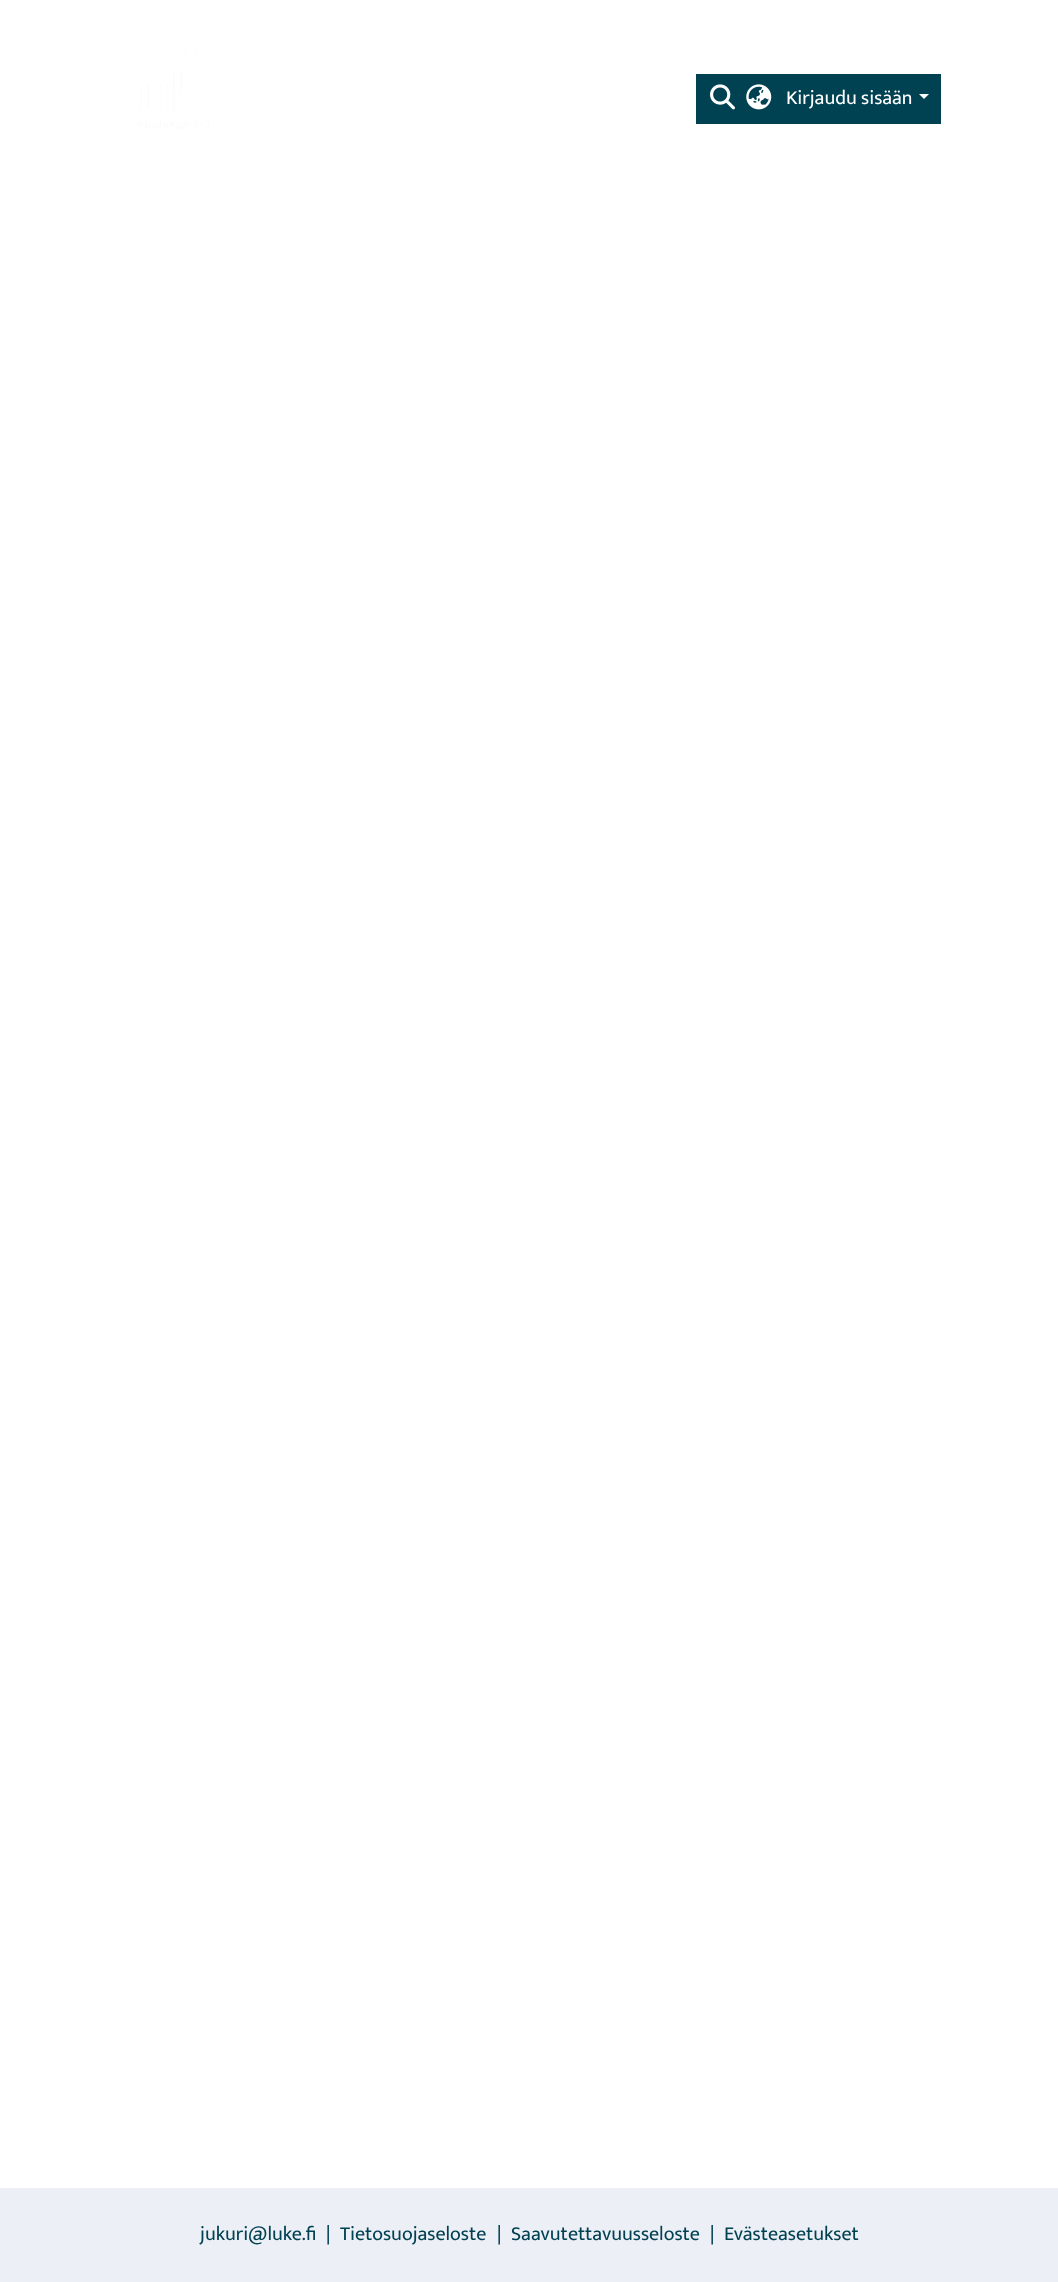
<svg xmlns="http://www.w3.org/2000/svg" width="1058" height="2282">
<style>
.a{font:20px Mukta;fill:#fff}
.b{font:20px Mukta;fill:#004152}
</style>
<rect width="100%" height="100%" fill="#fff"/>
<image href="1.png" x="138" y="48" width="71" height="81"/>
<path fill="#004152" d="M696 74h245v50H696z"/>
<image href="2.png" x="710" y="84" width="25" height="26"/>
<image href="3.png" x="746" y="84" width="26" height="26"/>
<path fill="#fff" d="M919 94h10l-5 5z"/>
<path fill="#eceff5" d="M0 2188h1058v94H0z"/>
<text class="a" x="786" y="104">Kirjaudu sisään</text>
<text class="b" x="200" y="2240">jukuri@luke.fi</text>
<text class="b" x="326" y="2240">|</text>
<text class="b" x="340" y="2240">Tietosuojaseloste</text>
<text class="b" x="497" y="2240">|</text>
<text class="b" x="511" y="2240">Saavutettavuusseloste</text>
<text class="b" x="710" y="2240">|</text>
<text class="b" x="724" y="2240">Evästeasetukset</text>
</svg>
